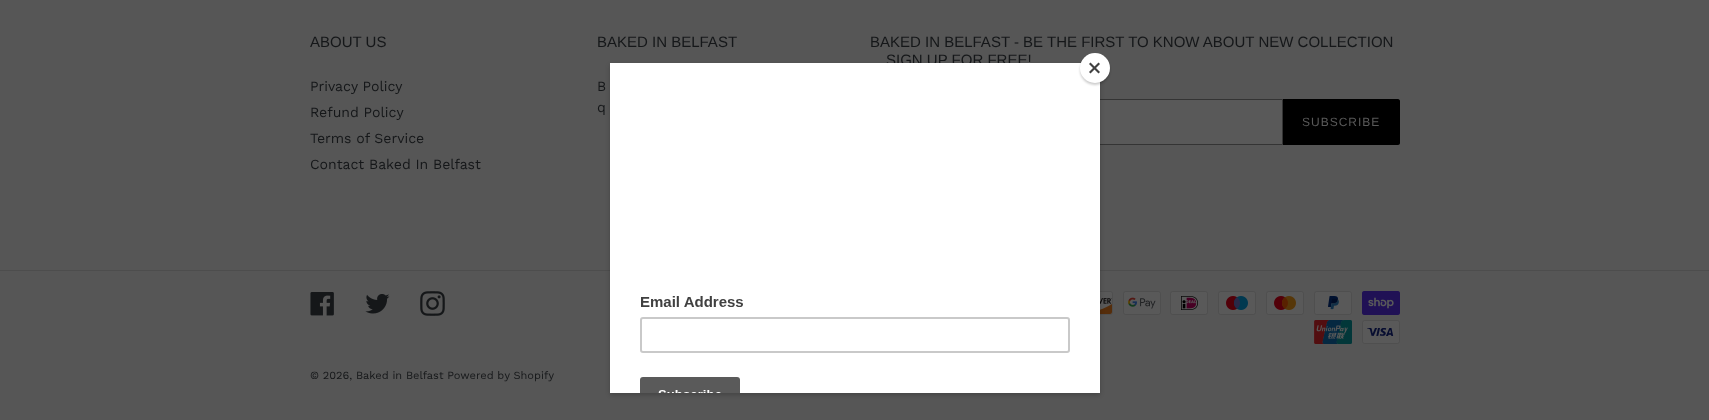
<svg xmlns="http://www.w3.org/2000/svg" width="1709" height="420">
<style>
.a{font:15px Arimo;fill:#151719}
.b{font:14px Work Sans;fill:#151719}
.c{font:12px Arimo;letter-spacing:1px;fill:#595959}
.d{font:11px Work Sans;fill:#151719}
</style>
<rect width="100%" height="100%" fill="#565656"/>
<path fill="#595959" d="M1100 100h182v44H1100z"/>
<path fill="none" stroke="#343434" d="M870.5 99.5h412v45H870.5z"/>
<path fill="#000" d="M1283 99h115c1 0 2 1 2 2v42c0 1-1 2-2 2h-115z"/>
<path fill="#4d4d4d" d="M0 270h1709v1H0z"/>
<image href="1.png" x="310" y="292" width="24" height="24"/>
<image href="2.png" x="365" y="294" width="25" height="20"/>
<image href="3.png" x="420" y="291" width="25" height="25"/>
<image href="4.png" x="1100" y="291" width="13" height="24"/>
<image href="5.png" x="1123" y="291" width="38" height="24"/>
<image href="6.png" x="1170" y="291" width="38" height="24"/>
<image href="7.png" x="1218" y="291" width="38" height="24"/>
<image href="8.png" x="1266" y="291" width="38" height="24"/>
<image href="9.png" x="1314" y="291" width="38" height="24"/>
<image href="10.png" x="1362" y="291" width="38" height="24"/>
<image href="11.png" x="1314" y="320" width="38" height="24"/>
<image href="12.png" x="1362" y="320" width="38" height="24"/>
<path fill="#00000033" filter="blur(2px)" d="M610 65h490v330H610z"/>
<text class="a" x="310" y="47">ABOUT US</text>
<text class="b" x="310" y="91">Privacy Policy</text>
<text class="b" x="310" y="117">Refund Policy</text>
<text class="b" x="310" y="143">Terms of Service</text>
<text class="b" x="310" y="169">Contact Baked In Belfast</text>
<text class="a" x="597" y="47">BAKED IN BELFAST</text>
<text class="b" x="597" y="91">B</text>
<text class="b" x="597" y="112">q</text>
<text class="a" x="870" y="47">BAKED IN BELFAST - BE THE FIRST TO KNOW ABOUT NEW COLLECTION</text>
<text class="a" x="886" y="65">SIGN UP FOR FREE!</text>
<text class="c" x="1302" y="126">SUBSCRIBE</text>
<text class="d" x="310" y="379">© 2026, Baked in Belfast Powered by Shopify</text>
<image href="13.png" x="610" y="63" width="490" height="330"/>
<rect fill="#00000033" filter="blur(1px)" x="1080" y="55" width="30" height="30" rx="15"/>
<circle fill="#fff" cx="1095" cy="68" r="15"/>
<path fill="#414141" d="M1098.5 62.5l1.5 1.5l-9.5 9.5l-1.5-1.5z"/>
<path fill="#414141" d="M1089 64l1.5-1.5l9.5 9.5l-1.5 1.5z"/>
</svg>
